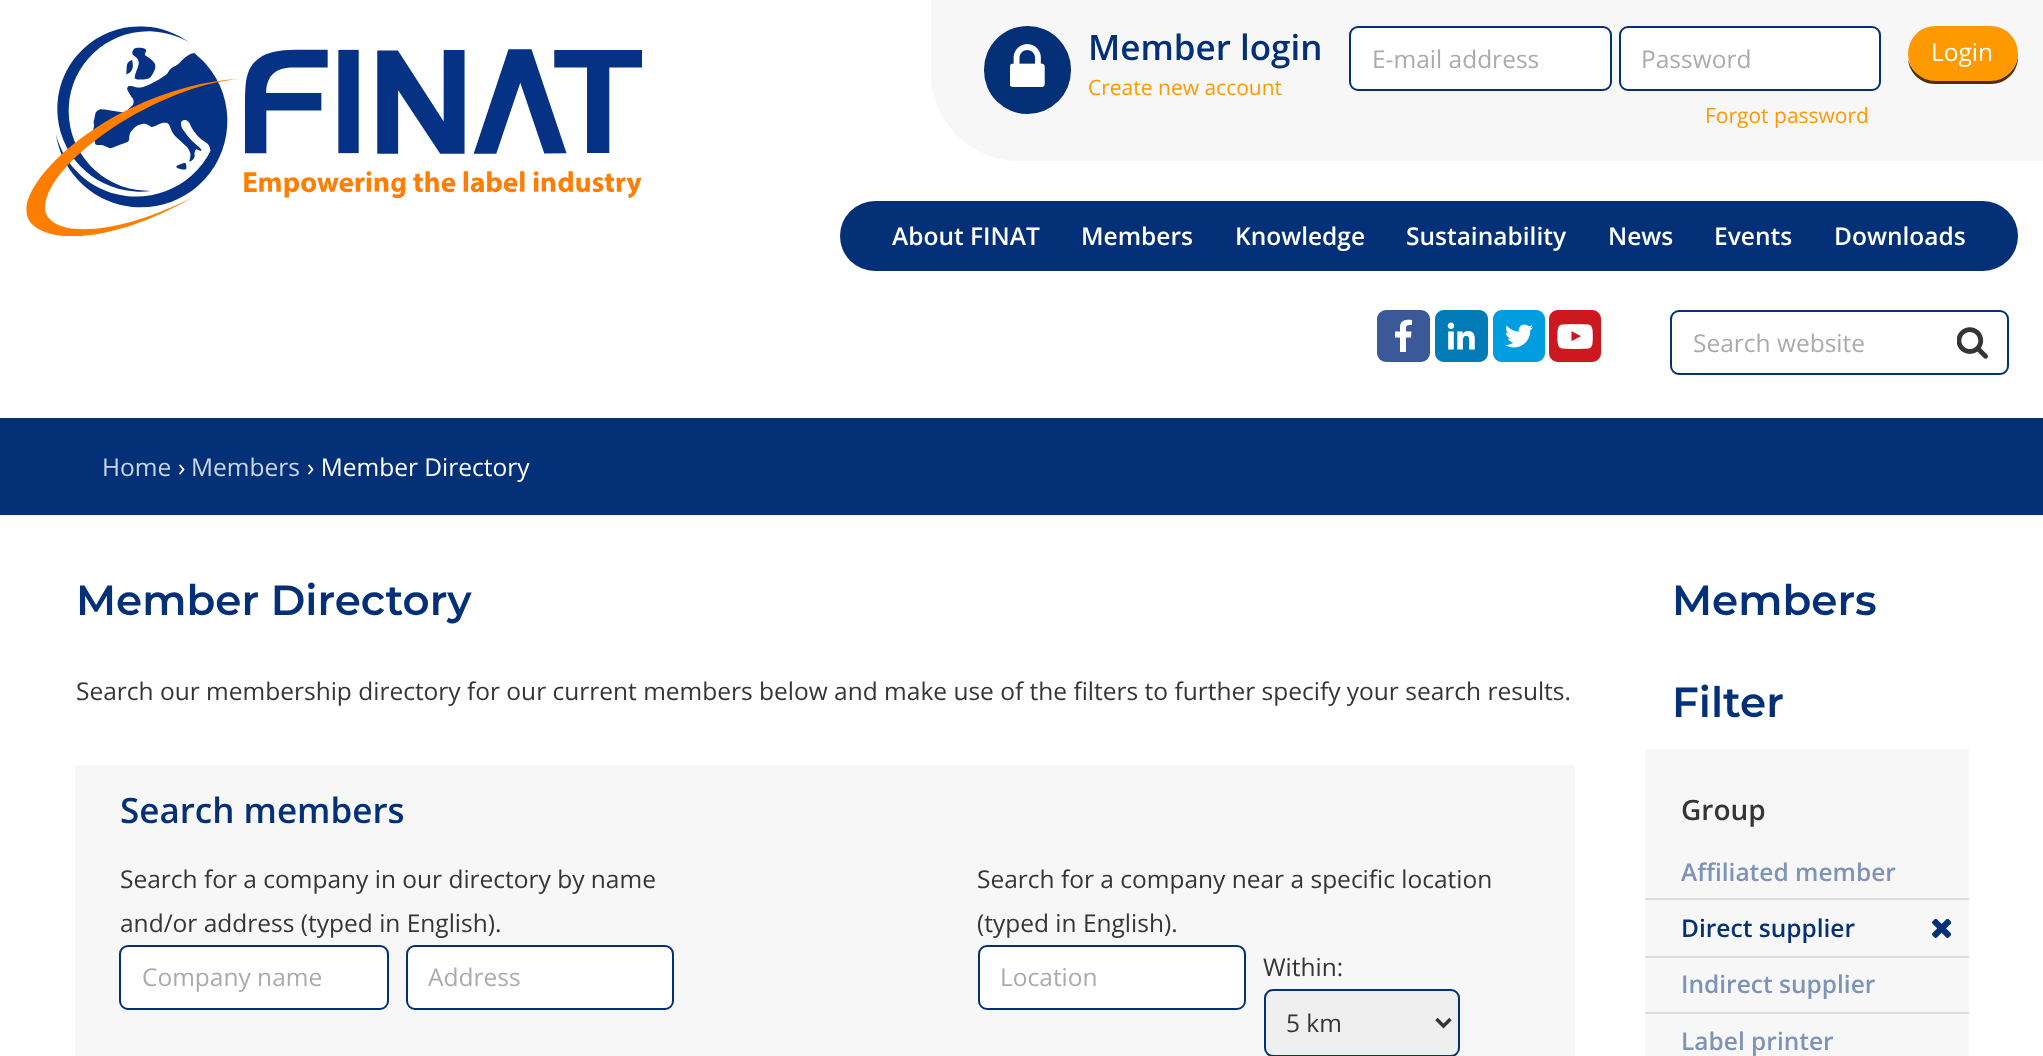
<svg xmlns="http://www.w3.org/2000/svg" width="2043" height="1056">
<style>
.a{font:600 35px Open Sans;fill:#033076}
.b{font:21px Open Sans;fill:#f90}
.c{font:24.5px Open Sans;fill:#ababab}
.d{font:24.5px Open Sans;fill:#fff}
.e{font:600 24.5px Open Sans;fill:#fff}
.f{font:24.5px Open Sans;fill:#cdd6e4}
.g{font:600 42px Montserrat;fill:#033076}
.h{font:24.5px Open Sans;fill:#353535}
.i{font:600 28px Open Sans;fill:#353535}
.j{font:600 24.5px Open Sans;fill:#7d94b7}
.k{font:600 24.5px Open Sans;fill:#033076}
</style>
<rect width="100%" height="100%" fill="#fff"/>
<image href="1.png" x="26" y="26" width="616" height="210"/>
<path fill="#f7f7f7" d="M931 0h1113v161h-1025c-48.5 0-88-39.5-88-88z"/>
<rect fill="#033076" x="984" y="26" width="87" height="88" rx="43.5"/>
<image href="2.png" x="1010" y="44" width="35" height="43"/>
<rect fill="#fff" stroke="#033076" stroke-width="2" x="1350" y="27" width="261" height="63" rx="8"/>
<rect fill="#fff" stroke="#033076" stroke-width="2" x="1620" y="27" width="260" height="63" rx="8"/>
<path fill="#4d2e00" d="M1908 59c1 14 13 25 27 25h56c15 0 27-12 27-27v-4c0 15-12 27-27 27h-56c-13 0-24-9-27-21z"/>
<rect fill="#f90" x="1908" y="26" width="110" height="55" rx="27.5"/>
<rect fill="#033076" x="840" y="201" width="1178" height="70" rx="35"/>
<rect fill="#3b5998" x="1377" y="310" width="53" height="52" rx="9"/>
<image href="3.png" x="1435" y="310" width="53" height="52"/>
<image href="4.png" x="1493" y="310" width="52" height="52"/>
<image href="5.png" x="1549" y="310" width="52" height="52"/>
<path fill="#fff" d="M1406 352v-14.5h5l.5-6h-5.5c0-6-.5-6.5 6-6.5v-5c-5-.5-11-.5-12 6v5.5h-5v6h5v14.5z"/>
<rect fill="none" stroke="#033076" stroke-width="2" x="1671" y="311" width="337" height="63" rx="8"/>
<image href="6.png" x="1957" y="327" width="31" height="32"/>
<path fill="#033076" d="M0 418h2043v97H0z"/>
<path fill="#f7f7f7" d="M75 765h1500v291H75z"/>
<rect fill="#fff" stroke="#033076" stroke-width="2" x="120" y="946" width="268" height="63" rx="8"/>
<rect fill="#fff" stroke="#033076" stroke-width="2" x="407" y="946" width="266" height="63" rx="8"/>
<rect fill="#fff" stroke="#033076" stroke-width="2" x="979" y="946" width="266" height="63" rx="8"/>
<rect fill="#efefef" stroke="#033076" stroke-width="2" x="1265" y="990" width="194" height="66" rx="8"/>
<path fill="none" stroke="#353535" stroke-width="3.5" d="M1436.5 1019l7 7l7-7"/>
<path fill="#f7f7f7" d="M1645 749h324v307H1645z"/>
<path fill="#dbdbdb" d="M1645 898h324v2H1645z"/>
<path fill="#dbdbdb" d="M1645 956h324v2H1645z"/>
<image href="7.png" x="1932" y="919" width="19" height="19"/>
<path fill="#dbdbdb" d="M1645 1012h324v2H1645z"/>
<text class="a" x="1088" y="60">Member login</text>
<text class="b" x="1088" y="95">Create new account</text>
<text class="c" x="1372" y="68">E-mail address</text>
<text class="c" x="1641" y="68">Password</text>
<text class="d" x="1931" y="61">Login</text>
<text class="b" x="1705" y="123">Forgot password</text>
<text class="e" x="892" y="245">About FINAT</text>
<text class="e" x="1081" y="245">Members</text>
<text class="e" x="1235" y="245">Knowledge</text>
<text class="e" x="1406" y="245">Sustainability</text>
<text class="e" x="1608" y="245">News</text>
<text class="e" x="1714" y="245">Events</text>
<text class="e" x="1834" y="245">Downloads</text>
<text class="c" x="1693" y="352">Search website</text>
<text class="f" x="102" y="476">Home</text>
<text class="d" x="178" y="476">›</text>
<text class="f" x="191" y="476">Members</text>
<text class="d" x="307" y="476">› Member Directory</text>
<text class="g" x="76" y="615">Member Directory</text>
<text class="h" x="76" y="700">Search our membership directory for our current members below and make use of the filters to further specify your search results.</text>
<text class="a" x="120" y="823">Search members</text>
<text class="h" x="120" y="888">Search for a company in our directory by name</text>
<text class="h" x="120" y="932">and/or address (typed in English).</text>
<text class="h" x="977" y="888">Search for a company near a specific location</text>
<text class="h" x="977" y="932">(typed in English).</text>
<text class="c" x="142" y="986">Company name</text>
<text class="c" x="428" y="986">Address</text>
<text class="c" x="1000" y="986">Location</text>
<text class="h" x="1263" y="976">Within:</text>
<text class="h" x="1286" y="1032">5 km</text>
<text class="g" x="1672" y="615">Members</text>
<text class="g" x="1672" y="717">Filter</text>
<text class="i" x="1681" y="820">Group</text>
<text class="j" x="1681" y="881">Affiliated member</text>
<text class="k" x="1681" y="937">Direct supplier</text>
<text class="j" x="1681" y="993">Indirect supplier</text>
<text class="j" x="1681" y="1050">Label printer</text>
</svg>
